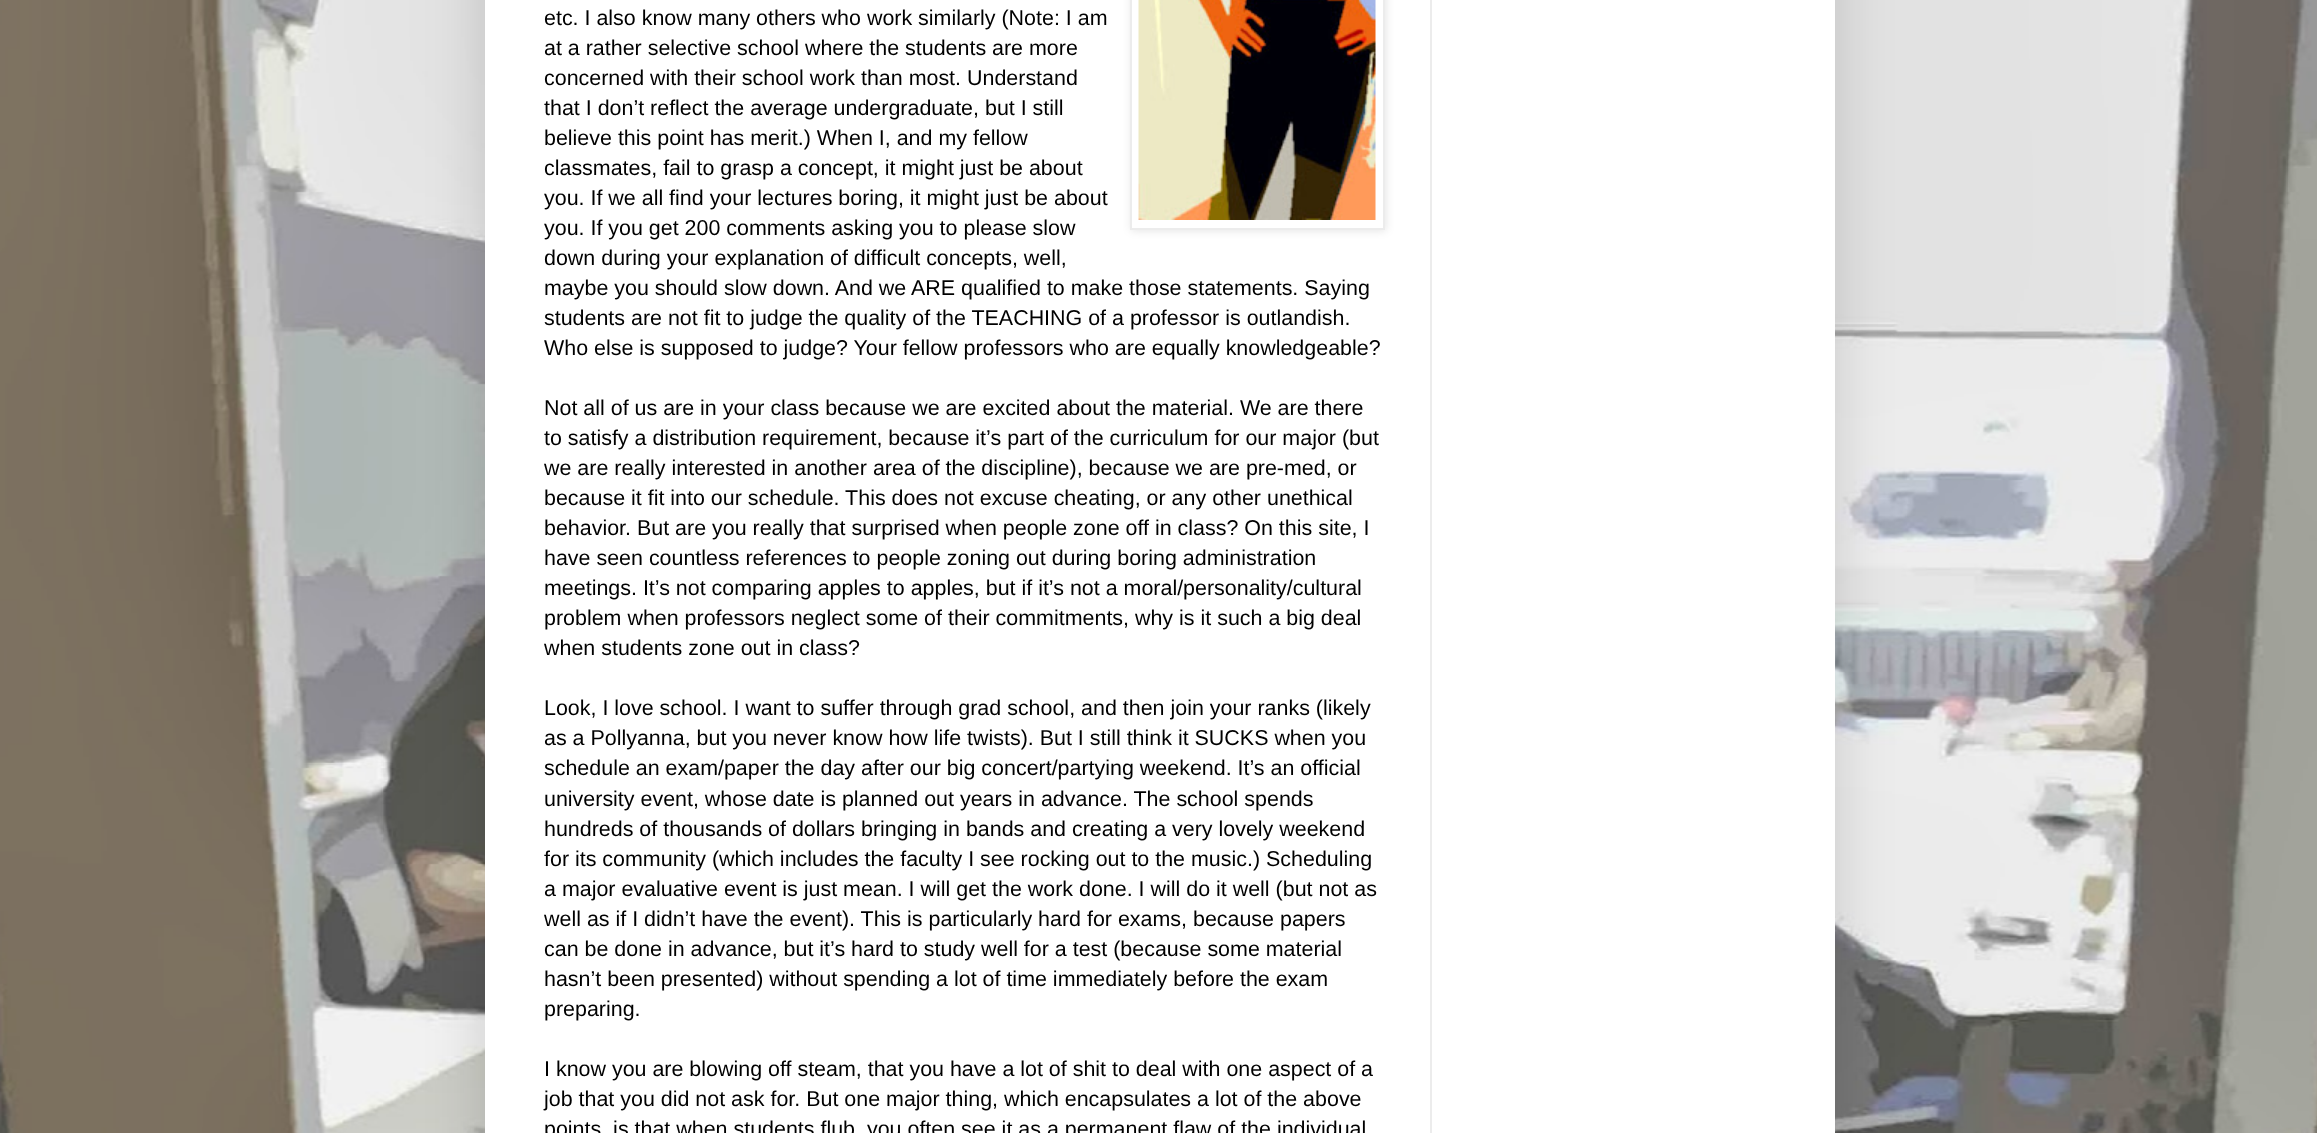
<svg xmlns="http://www.w3.org/2000/svg" width="2317" height="1133">
<style>
.a{font:21.45px Liberation Sans;fill:#000}
</style>
<rect width="100%" height="100%" fill="#fff"/>
<image href="1.png" x="0" y="0" width="2317" height="1133"/>
<path fill="#00000026" filter="blur(30px)" d="M485 -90h1350v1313H485z"/>
<path fill="#fff" d="M485 0h1350v1133H485z"/>
<path fill="#0000001a" filter="blur(4px)" d="M1131 -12h255v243H1131z"/>
<path fill="#fff" stroke="#ececec" stroke-width="2" d="M1131 -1h253v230H1131z"/>
<image href="2.png" x="1138" y="0" width="238" height="220"/>
<path fill="#ececec" d="M1430 0h2v1133H1430z"/>
<text class="a" x="544" y="25">etc. I also know many others who work similarly (Note: I am</text>
<text class="a" x="544" y="55">at a rather selective school where the students are more</text>
<text class="a" x="544" y="85">concerned with their school work than most. Understand</text>
<text class="a" x="544" y="115">that I don’t reflect the average undergraduate, but I still</text>
<text class="a" x="544" y="145">believe this point has merit.) When I, and my fellow</text>
<text class="a" x="544" y="175">classmates, fail to grasp a concept, it might just be about</text>
<text class="a" x="544" y="205">you. If we all find your lectures boring, it might just be about</text>
<text class="a" x="544" y="235">you. If you get 200 comments asking you to please slow</text>
<text class="a" x="544" y="265">down during your explanation of difficult concepts, well,</text>
<text class="a" x="544" y="295">maybe you should slow down. And we ARE qualified to make those statements. Saying</text>
<text class="a" x="544" y="325">students are not fit to judge the quality of the TEACHING of a professor is outlandish.</text>
<text class="a" x="544" y="355">Who else is supposed to judge? Your fellow professors who are equally knowledgeable?</text>
<text class="a" x="544" y="415">Not all of us are in your class because we are excited about the material. We are there</text>
<text class="a" x="544" y="445">to satisfy a distribution requirement, because it’s part of the curriculum for our major (but</text>
<text class="a" x="544" y="475">we are really interested in another area of the discipline), because we are pre-med, or</text>
<text class="a" x="544" y="505">because it fit into our schedule. This does not excuse cheating, or any other unethical</text>
<text class="a" x="544" y="535">behavior. But are you really that surprised when people zone off in class? On this site, I</text>
<text class="a" x="544" y="565">have seen countless references to people zoning out during boring administration</text>
<text class="a" x="544" y="595">meetings. It’s not comparing apples to apples, but if it’s not a moral/personality/cultural</text>
<text class="a" x="544" y="625">problem when professors neglect some of their commitments, why is it such a big deal</text>
<text class="a" x="544" y="655">when students zone out in class?</text>
<text class="a" x="544" y="715">Look, I love school. I want to suffer through grad school, and then join your ranks (likely</text>
<text class="a" x="544" y="745">as a Pollyanna, but you never know how life twists). But I still think it SUCKS when you</text>
<text class="a" x="544" y="775">schedule an exam/paper the day after our big concert/partying weekend. It’s an official</text>
<text class="a" x="544" y="806">university event, whose date is planned out years in advance. The school spends</text>
<text class="a" x="544" y="836">hundreds of thousands of dollars bringing in bands and creating a very lovely weekend</text>
<text class="a" x="544" y="866">for its community (which includes the faculty I see rocking out to the music.) Scheduling</text>
<text class="a" x="544" y="896">a major evaluative event is just mean. I will get the work done. I will do it well (but not as</text>
<text class="a" x="544" y="926">well as if I didn’t have the event). This is particularly hard for exams, because papers</text>
<text class="a" x="544" y="956">can be done in advance, but it’s hard to study well for a test (because some material</text>
<text class="a" x="544" y="986">hasn’t been presented) without spending a lot of time immediately before the exam</text>
<text class="a" x="544" y="1016">preparing.</text>
<text class="a" x="544" y="1076">I know you are blowing off steam, that you have a lot of shit to deal with one aspect of a</text>
<text class="a" x="544" y="1106">job that you did not ask for. But one major thing, which encapsulates a lot of the above</text>
<text class="a" x="544" y="1136">points, is that when students flub, you often see it as a permanent flaw of the individual</text>
</svg>
